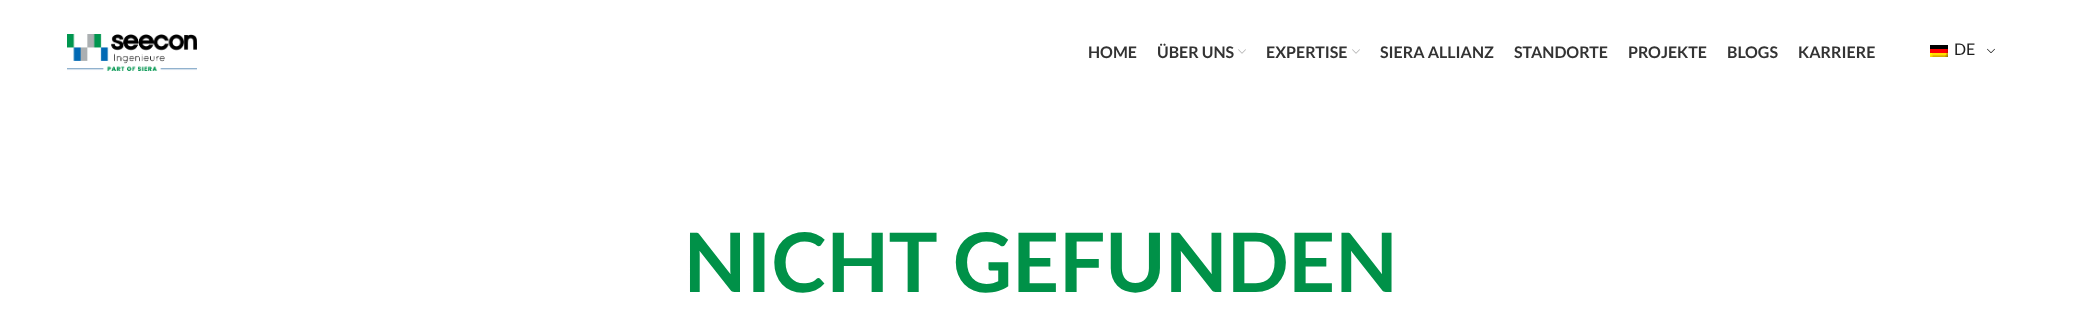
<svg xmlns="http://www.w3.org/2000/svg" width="2082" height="320">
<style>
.a{font:bold 16px Lato;fill:#333}
.b{font:16px Lato;fill:#1e1e1e}
.c{font:bold 82px Lato;fill:#009148}
</style>
<rect width="100%" height="100%" fill="#fff"/>
<image href="1.png" x="67" y="34" width="130" height="37"/>
<image href="2.png" x="1238" y="49" width="8" height="5"/>
<image href="2.png" x="1352" y="49" width="8" height="5"/>
<image href="3.png" x="1987" y="48" width="8" height="5"/>
<image href="4.png" x="1930" y="45" width="18" height="12"/>
<text class="a" x="1088" y="58">HOME</text>
<text class="a" x="1157" y="58">ÜBER UNS</text>
<text class="a" x="1266" y="58">EXPERTISE</text>
<text class="a" x="1380" y="58">SIERA ALLIANZ</text>
<text class="a" x="1514" y="58">STANDORTE</text>
<text class="a" x="1628" y="58">PROJEKTE</text>
<text class="a" x="1727" y="58">BLOGS</text>
<text class="a" x="1798" y="58">KARRIERE</text>
<text class="b" x="1954" y="55">DE</text>
<text class="c" x="684" y="292">NICHT GEFUNDEN</text>
</svg>
